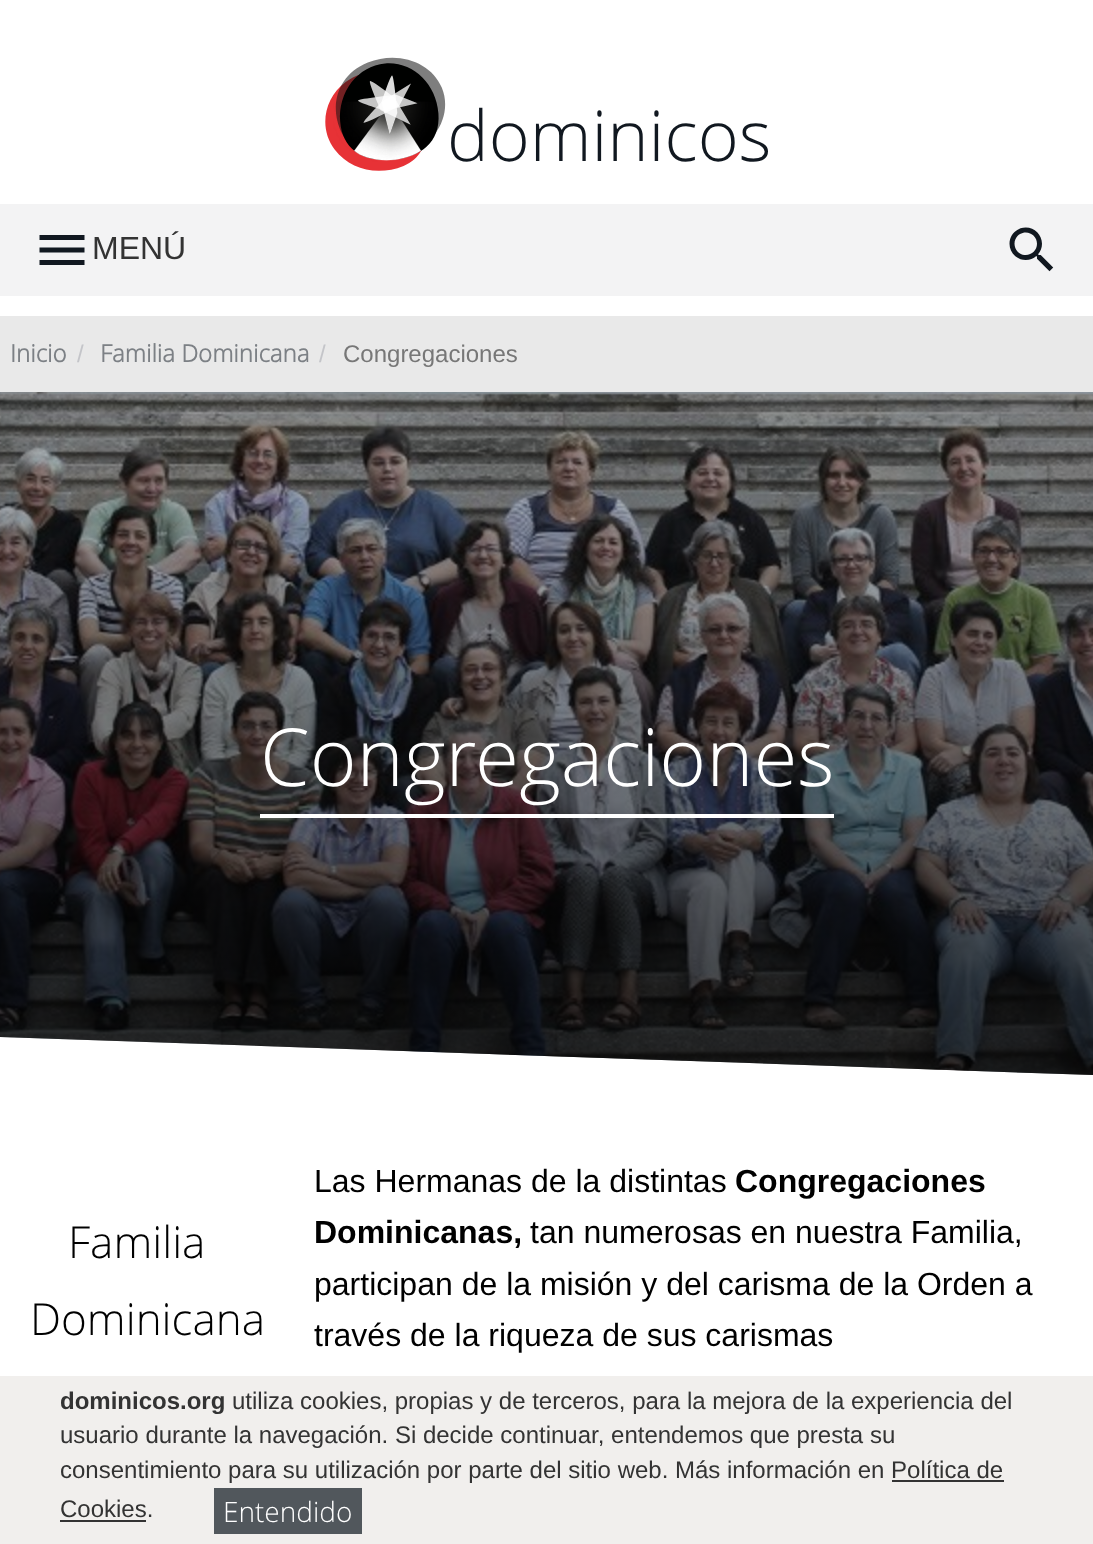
<svg xmlns="http://www.w3.org/2000/svg" width="1093" height="1544">
<style>
.a{font:300 70px Open Sans;fill:#111820}
.b{font:32px Liberation Sans;fill:#333}
.c{font:bold 24px Open Sans;fill:#7c8085}
.d{font:24px Liberation Sans;fill:#c4c5c9}
.e{font:24px Liberation Sans;fill:#777}
.f{font:300 80px Open Sans;fill:#fff}
.g{font:300 44px Open Sans;fill:#000}
.h{font:32px Liberation Sans;fill:#000}
.i{font:bold 32px Liberation Sans;fill:#000}
.j{font:bold 24px Liberation Sans;fill:#333}
.k{font:24px Liberation Sans;fill:#333}
.l{font:300 28px Open Sans;fill:#fff}
</style>
<rect width="100%" height="100%" fill="#fff"/>
<image href="1.png" x="325" y="57" width="121" height="114"/>
<path fill="#f3f3f4" d="M0 204h1093v92H0z"/>
<image href="2.png" x="39" y="235" width="46" height="30"/>
<image href="3.png" x="1009" y="227" width="45" height="45"/>
<path fill="#e9e9e9" d="M0 316h1093v76H0z"/>
<image href="4.png" x="0" y="392" width="1093" height="683"/>
<path fill="#fff" d="M260 814h574v4H260z"/>
<path fill="#f1efed" d="M0 1376h1093v168H0z"/>
<path fill="#333" d="M892 1480h112v2H892z"/>
<path fill="#333" d="M60 1520h86v2H60z"/>
<path fill="#51575c" d="M214 1488h148v46H214z"/>
<text class="a" x="447" y="161">dominicos</text>
<text class="b" x="92" y="259">MENÚ</text>
<text class="c" x="10" y="362">Inicio</text>
<text class="d" x="77" y="362">/</text>
<text class="c" x="100" y="362">Familia Dominicana</text>
<text class="d" x="319" y="362">/</text>
<text class="e" x="343" y="362">Congregaciones</text>
<text class="f" x="260" y="786">Congregaciones</text>
<text class="g" x="68" y="1258">Familia</text>
<text class="g" x="30" y="1335">Dominicana</text>
<text class="h" x="314" y="1192">Las Hermanas de la distintas</text>
<text class="i" x="735" y="1192">Congregaciones</text>
<text class="i" x="314" y="1243">Dominicanas,</text>
<text class="h" x="530" y="1243">tan numerosas en nuestra Familia,</text>
<text class="h" x="314" y="1295">participan de la misión y del carisma de la Orden a</text>
<text class="h" x="314" y="1346">través de la riqueza de sus carismas</text>
<text class="j" x="60" y="1409">dominicos.org</text>
<text class="k" x="232" y="1409">utiliza cookies, propias y de terceros, para la mejora de la experiencia del</text>
<text class="k" x="60" y="1443">usuario durante la navegación. Si decide continuar, entendemos que presta su</text>
<text class="k" x="60" y="1478">consentimiento para su utilización por parte del sitio web. Más información en Política de</text>
<text class="k" x="60" y="1517">Cookies.</text>
<text class="l" x="223" y="1522">Entendido</text>
</svg>
